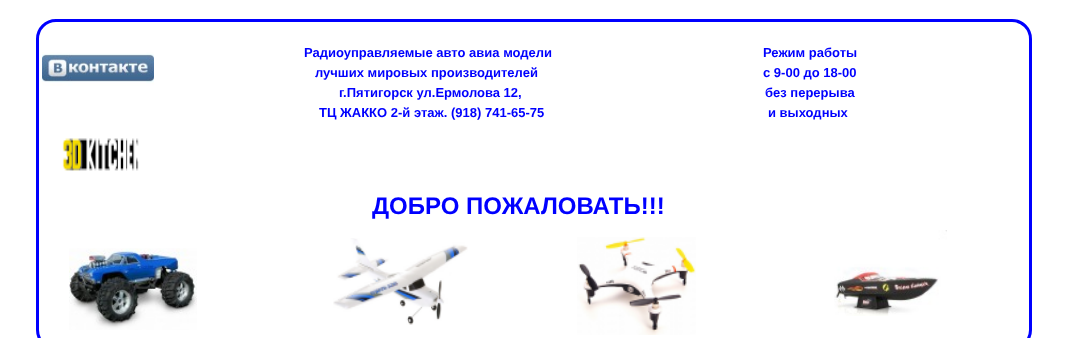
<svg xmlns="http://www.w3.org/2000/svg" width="1067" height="338">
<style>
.a{font:bold 13px Liberation Sans;fill:#00f}
.b{font:bold 24px Liberation Sans;fill:#00f}
</style>
<rect width="100%" height="100%" fill="#fff"/>
<rect fill="none" stroke="#00f" stroke-width="3" x="37.5" y="20.5" width="993" height="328" rx="18.5"/>
<image href="1.png" x="42" y="52" width="112" height="34"/>
<image href="2.png" x="62" y="138" width="77" height="33"/>
<image href="3.png" x="69" y="248" width="128" height="82"/>
<image href="4.png" x="333" y="238" width="135" height="87"/>
<image href="5.png" x="577" y="237" width="119" height="98"/>
<image href="6.png" x="834" y="230" width="113" height="86"/>
<text class="a" x="304" y="57">Радиоуправляемые авто авиа модели</text>
<text class="a" x="315" y="77">лучших мировых производителей</text>
<text class="a" x="339" y="97">г.Пятигорск ул.Ермолова 12,</text>
<text class="a" x="319" y="117">ТЦ ЖАККО 2-й этаж. (918) 741-65-75</text>
<text class="a" x="763" y="57">Режим работы</text>
<text class="a" x="763" y="77">с 9-00 до 18-00</text>
<text class="a" x="765" y="97">без перерыва</text>
<text class="a" x="768" y="117">и выходных</text>
<text class="b" x="372" y="214">ДОБРО ПОЖАЛОВАТЬ!!!</text>
</svg>
